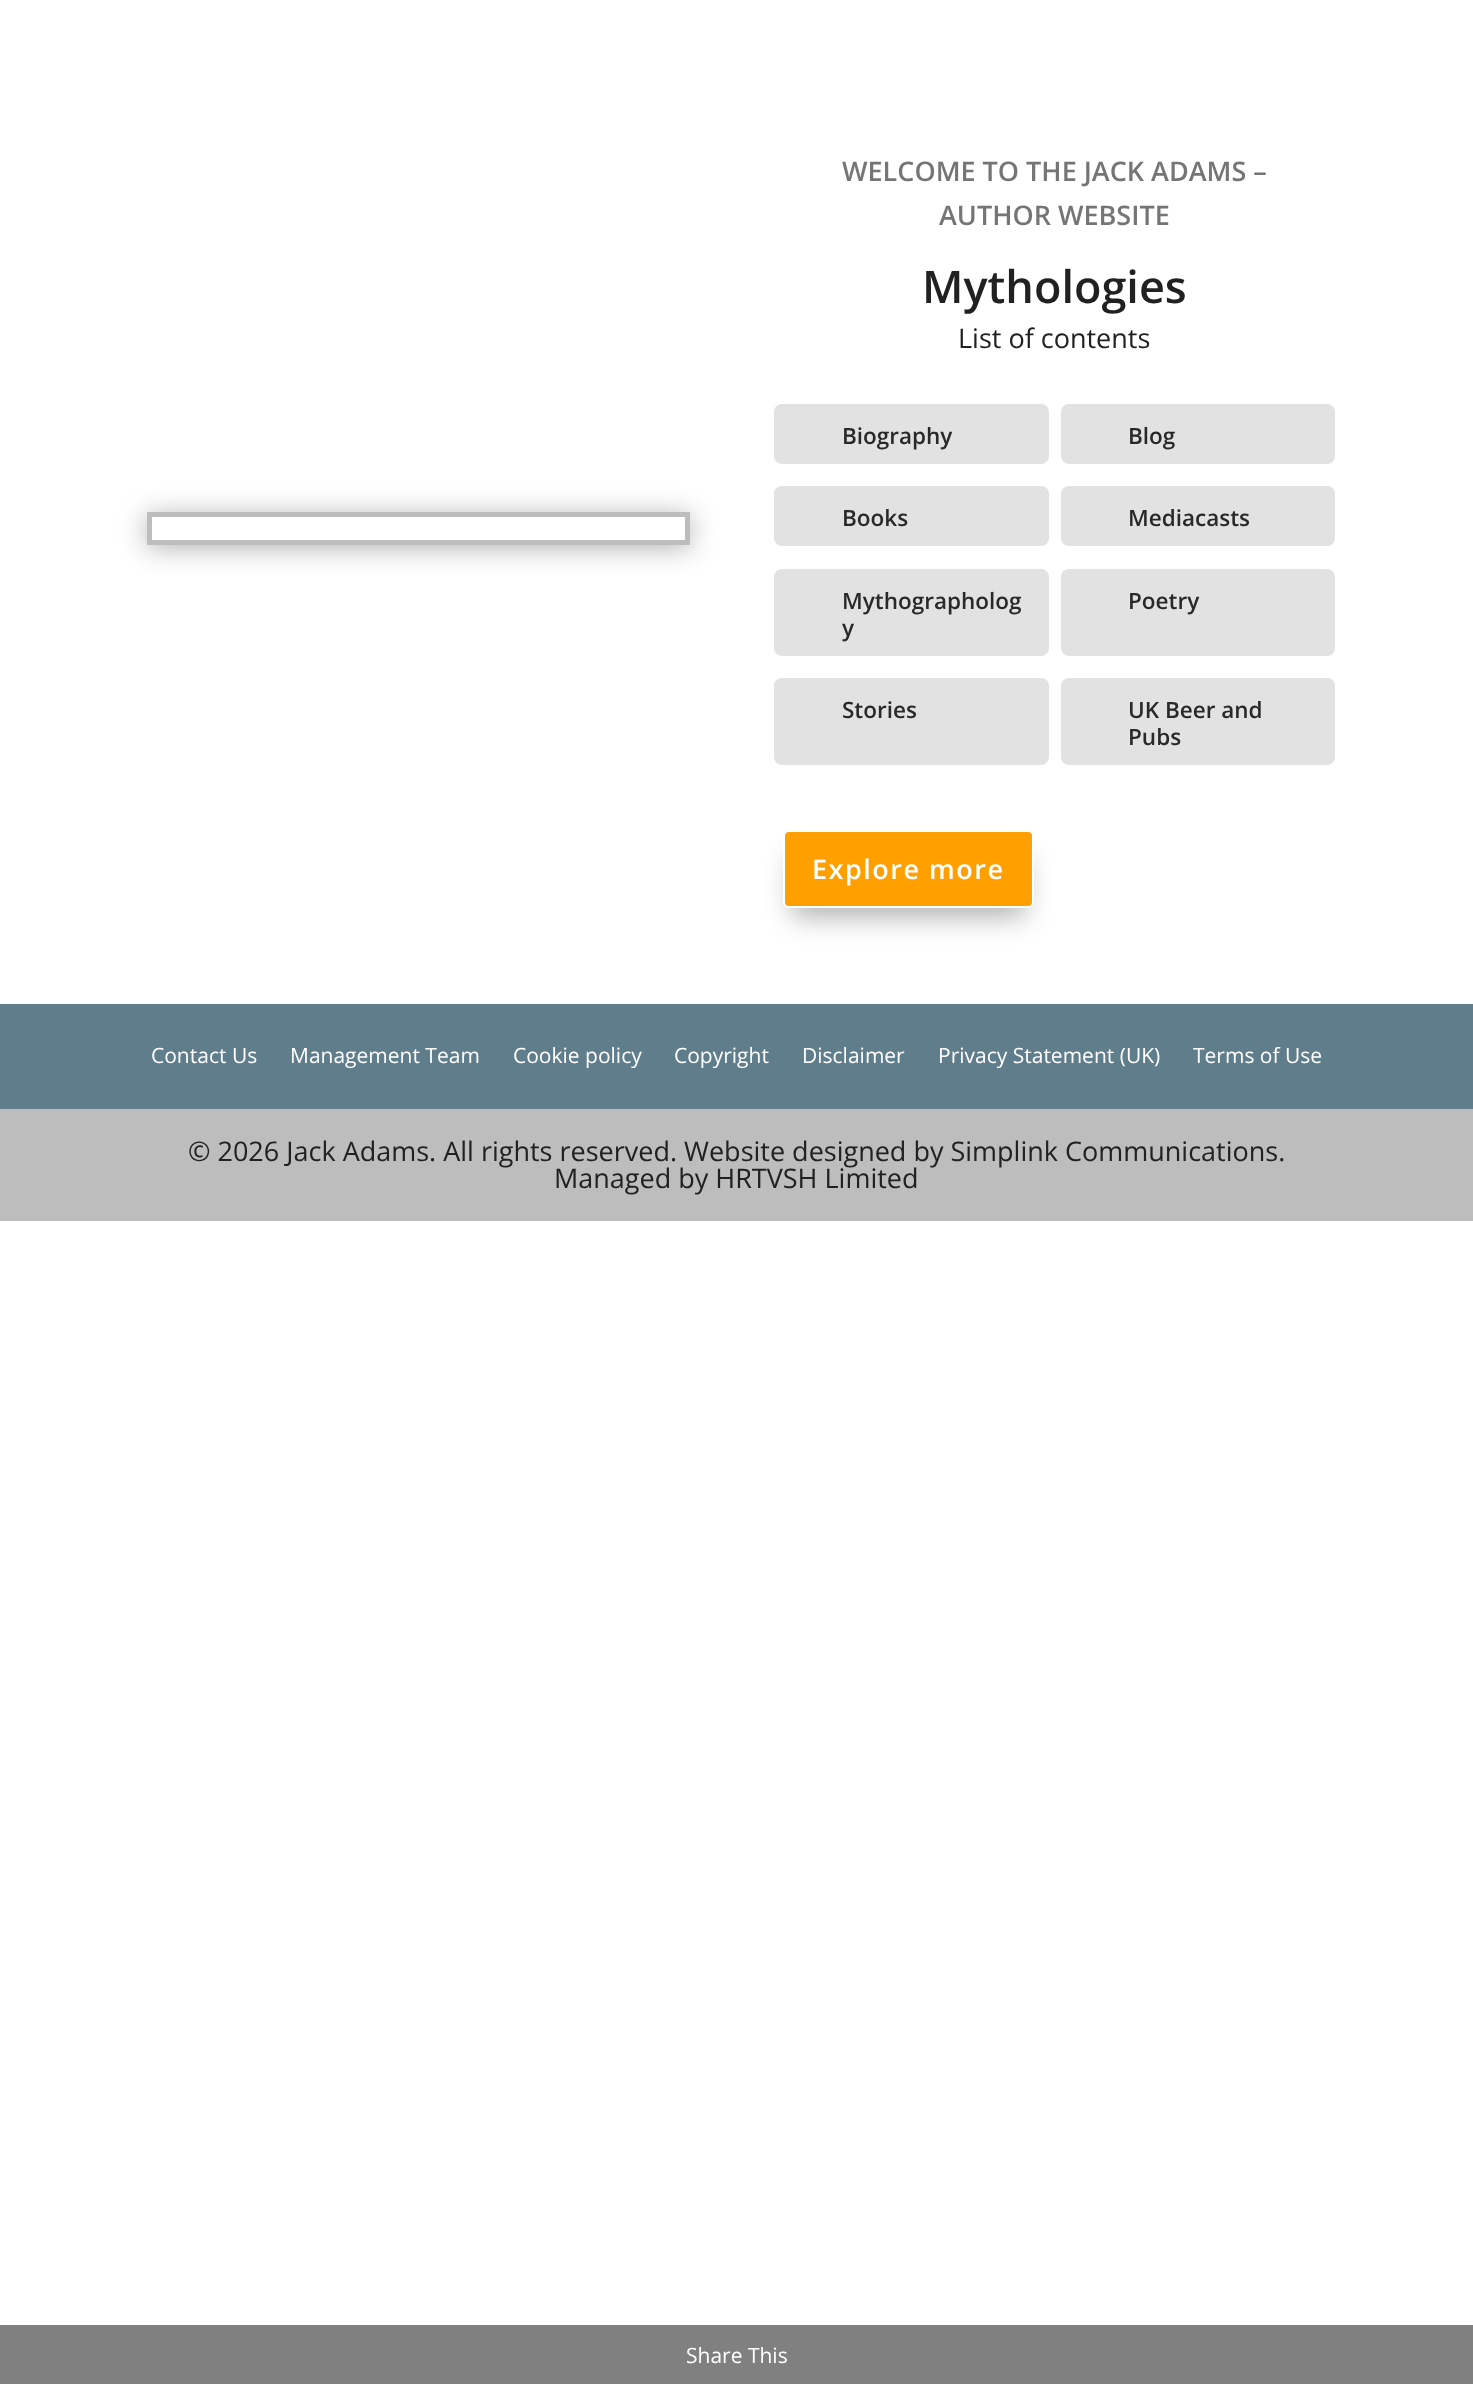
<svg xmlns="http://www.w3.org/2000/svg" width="1473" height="2384">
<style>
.a{font:600 27px Open Sans;fill:#757575}
.b{font:600 45px Open Sans;fill:#212121}
.c{font:27px Open Sans;fill:#212121}
.d{font:600 22.5px Open Sans;fill:#292929}
.e{font:600 27px Open Sans;letter-spacing:1.5px;fill:#fff}
.f{font:21px Open Sans;fill:#fff}
</style>
<defs>
<clipPath id="clip1"><path d="M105 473h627v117h-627zm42 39h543v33h-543z" clip-rule="evenodd"/></clipPath>
</defs>
<rect width="100%" height="100%" fill="#fff"/>
<g clip-path="url(#clip1)">
<path fill="#0000004d" filter="blur(13.5px)" d="M147 515h543v33H147z"/>
</g>
<path fill="none" stroke="#bdbdbd" stroke-width="5" d="M149.5 514.5h538v28H149.5z"/>
<rect fill="#e2e2e2" x="774" y="404" width="275" height="60" rx="8"/>
<rect fill="#e2e2e2" x="1061" y="404" width="274" height="60" rx="8"/>
<rect fill="#e2e2e2" x="774" y="486" width="275" height="60" rx="8"/>
<rect fill="#e2e2e2" x="1061" y="486" width="274" height="60" rx="8"/>
<rect fill="#e2e2e2" x="774" y="569" width="275" height="87" rx="8"/>
<rect fill="#e2e2e2" x="1061" y="569" width="274" height="87" rx="8"/>
<rect fill="#e2e2e2" x="774" y="678" width="275" height="87" rx="8"/>
<rect fill="#e2e2e2" x="1061" y="678" width="274" height="87" rx="8"/>
<path fill="#0000004d" filter="blur(13.5px)" d="M792 857h233v60H792z"/>
<rect fill="#ffa000" stroke="#fff" stroke-width="2" x="784" y="831" width="249" height="76" rx="5"/>
<path fill="#607d8b" d="M0 1004h1473v105H0z"/>
<path fill="#bdbdbd" d="M0 1109h1473v112H0z"/>
<path fill="#808080" d="M0 2325h1473v59H0z"/>
<text class="a" x="842" y="181">WELCOME TO THE JACK ADAMS –</text>
<text class="a" x="939" y="225">AUTHOR WEBSITE</text>
<text class="b" x="922" y="303">Mythologies</text>
<text class="c" x="958" y="348">List of contents</text>
<text class="d" x="842" y="444">Biography</text>
<text class="d" x="1128" y="444">Blog</text>
<text class="d" x="842" y="526">Books</text>
<text class="d" x="1128" y="526">Mediacasts</text>
<text class="d" x="842" y="609">Mythographolog</text>
<text class="d" x="842" y="636">y</text>
<text class="d" x="1128" y="609">Poetry</text>
<text class="d" x="842" y="718">Stories</text>
<text class="d" x="1128" y="718">UK Beer and</text>
<text class="d" x="1128" y="745">Pubs</text>
<text class="e" x="812" y="879">Explore more</text>
<text class="f" x="151" y="1063">Contact Us</text>
<text class="f" x="290" y="1063">Management Team</text>
<text class="f" x="513" y="1063">Cookie policy</text>
<text class="f" x="674" y="1063">Copyright</text>
<text class="f" x="802" y="1063">Disclaimer</text>
<text class="f" x="938" y="1063">Privacy Statement (UK)</text>
<text class="f" x="1193" y="1063">Terms of Use</text>
<text class="c" x="188" y="1161">© 2026 Jack Adams. All rights reserved. Website designed by Simplink Communications.</text>
<text class="c" x="554" y="1188">Managed by HRTVSH Limited</text>
<text class="f" x="686" y="2363">Share This</text>
</svg>
